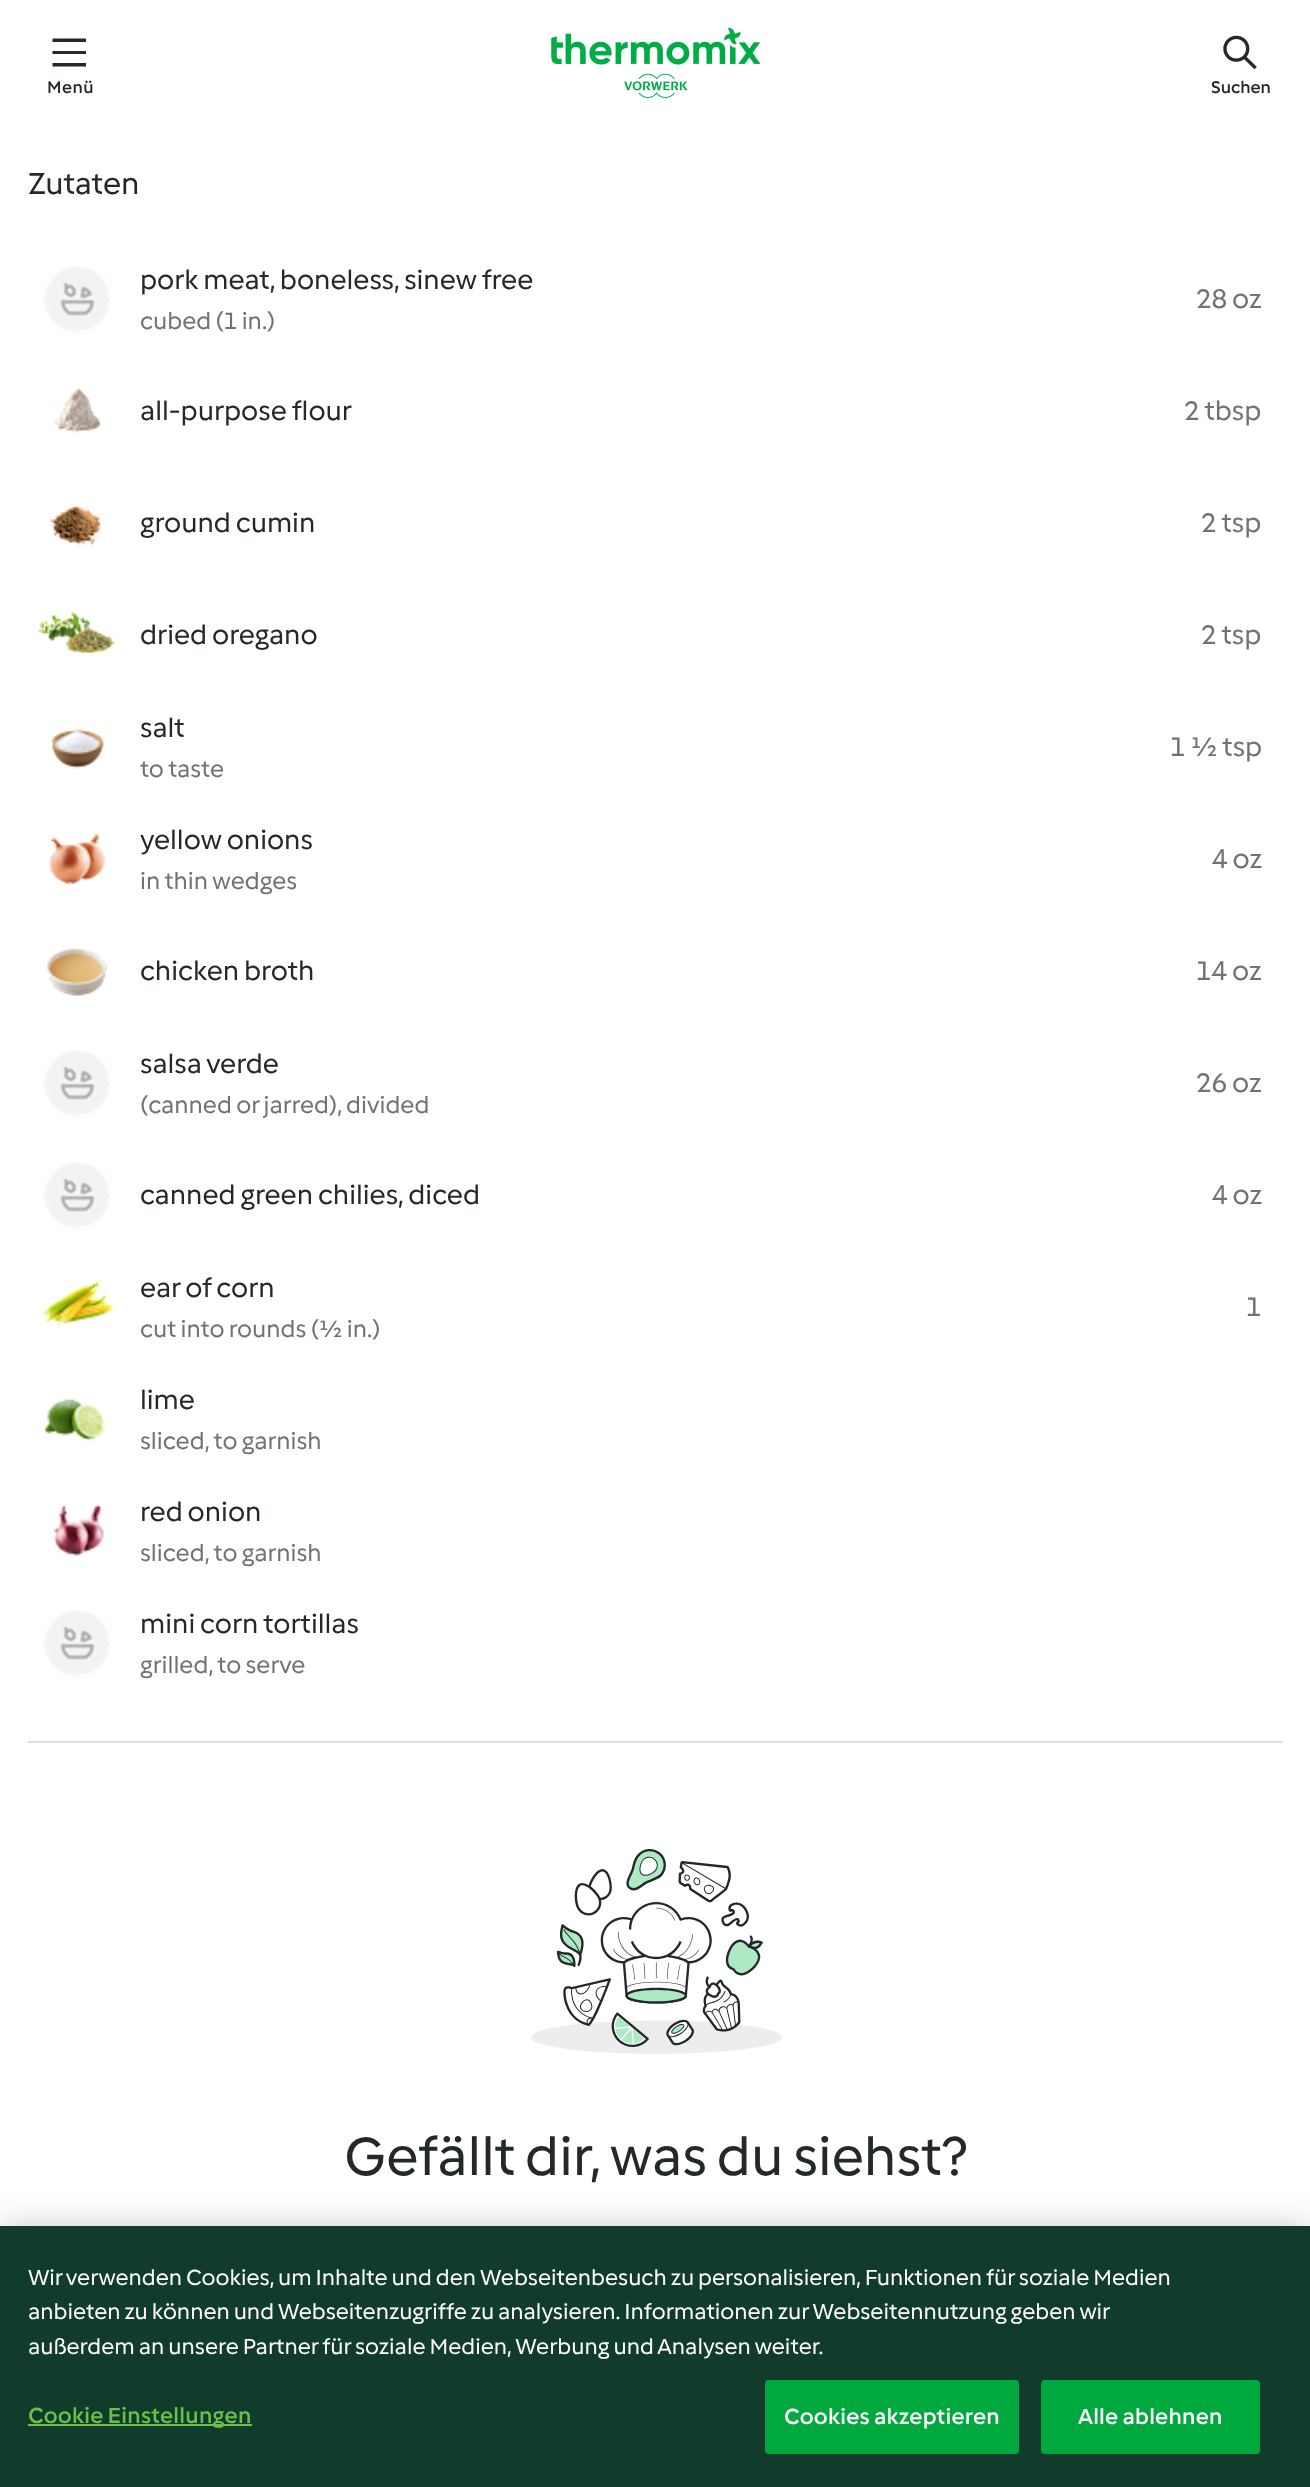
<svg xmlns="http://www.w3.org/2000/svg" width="1310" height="2487">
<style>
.a{font:500 17.5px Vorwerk;letter-spacing:0.5px;fill:#23282a}
.b{font:500 17.5px Vorwerk;fill:#23282a}
.c{font:31.5px Vorwerk;fill:#23282a}
.d{font:28px Vorwerk;fill:#23282a}
.e{font:24.5px Vorwerk;fill:#707375}
.f{font:28px Vorwerk;fill:#707375}
.g{font:56px Vorwerk;fill:#23282a}
.h{font:22.75px Vorwerk;fill:#fff}
.i{font:500 22.75px Vorwerk;letter-spacing:0.25px;fill:#6cc04a}
.j{font:500 22.75px Vorwerk;letter-spacing:0.25px;fill:#fff}
</style>
<rect width="100%" height="100%" fill="#fff"/>
<path fill="#23282a" d="M52.5 38.5h33.5v3.5h-33.5zm0 12.5h33.5v3h-33.5zm0 12h33.5v3.5h-33.5z"/>
<image href="1.png" x="551" y="28" width="209" height="70"/>
<image href="2.png" x="1223" y="35" width="34" height="35"/>
<image href="3.png" x="43" y="265" width="68" height="68"/>
<image href="4.png" x="54" y="388" width="47" height="45"/>
<image href="5.png" x="49" y="505" width="53" height="41"/>
<image href="6.png" x="38" y="611" width="78" height="44"/>
<image href="7.png" x="50" y="729" width="54" height="40"/>
<image href="8.png" x="48" y="833" width="58" height="51"/>
<image href="9.png" x="46" y="948" width="62" height="48"/>
<image href="3.png" x="43" y="1049" width="68" height="68"/>
<image href="3.png" x="43" y="1161" width="68" height="68"/>
<image href="10.png" x="40" y="1278" width="74" height="50"/>
<image href="11.png" x="43" y="1399" width="63" height="42"/>
<image href="12.png" x="53" y="1504" width="51" height="52"/>
<image href="3.png" x="43" y="1609" width="68" height="68"/>
<path fill="#dcdfdc" d="M28 1741h1255v2H28z"/>
<image href="13.png" x="531" y="1849" width="251" height="205"/>
<path fill="#00000033" filter="blur(16px)" d="M0 2226h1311v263H0z"/>
<path fill="#113c2b" d="M0 2226h1310v261H0z"/>
<path fill="#6cc04a" d="M28 2424h224v2H28z"/>
<rect fill="#00a93d" stroke="#00a93d" stroke-width="2" x="766" y="2381" width="252" height="72" rx="3"/>
<rect fill="#00a93d" stroke="#00a93d" stroke-width="2" x="1042" y="2381" width="217" height="72" rx="3"/>
<text class="a" x="47" y="93">Menü</text>
<text class="b" x="1211" y="93">Suchen</text>
<text class="c" x="28" y="194">Zutaten</text>
<text class="d" x="140" y="289">pork meat, boneless, sinew free</text>
<text class="e" x="140" y="329">cubed (1 in.)</text>
<text class="f" x="1196" y="308">28 oz</text>
<text class="d" x="140" y="420">all-purpose flour</text>
<text class="f" x="1184" y="420">2 tbsp</text>
<text class="d" x="140" y="532">ground cumin</text>
<text class="f" x="1201" y="532">2 tsp</text>
<text class="d" x="140" y="644">dried oregano</text>
<text class="f" x="1201" y="644">2 tsp</text>
<text class="d" x="140" y="737">salt</text>
<text class="e" x="140" y="777">to taste</text>
<text class="f" x="1170" y="756">1 ½ tsp</text>
<text class="d" x="140" y="849">yellow onions</text>
<text class="e" x="140" y="889">in thin wedges</text>
<text class="f" x="1212" y="868">4 oz</text>
<text class="d" x="140" y="980">chicken broth</text>
<text class="f" x="1196" y="980">14 oz</text>
<text class="d" x="140" y="1073">salsa verde</text>
<text class="e" x="140" y="1113">(canned or jarred), divided</text>
<text class="f" x="1196" y="1092">26 oz</text>
<text class="d" x="140" y="1204">canned green chilies, diced</text>
<text class="f" x="1212" y="1204">4 oz</text>
<text class="d" x="140" y="1297">ear of corn</text>
<text class="e" x="140" y="1337">cut into rounds (½ in.)</text>
<text class="f" x="1246" y="1316">1</text>
<text class="d" x="140" y="1409">lime</text>
<text class="e" x="140" y="1449">sliced, to garnish</text>
<text class="d" x="140" y="1521">red onion</text>
<text class="e" x="140" y="1561">sliced, to garnish</text>
<text class="d" x="140" y="1633">mini corn tortillas</text>
<text class="e" x="140" y="1673">grilled, to serve</text>
<text class="g" x="344" y="2175">Gefällt dir, was du siehst?</text>
<text class="h" x="28" y="2285">Wir verwenden Cookies, um Inhalte und den Webseitenbesuch zu personalisieren, Funktionen für soziale Medien</text>
<text class="h" x="28" y="2319" word-spacing="-0.1">anbieten zu können und Webseitenzugriffe zu analysieren. Informationen zur Webseitennutzung geben wir</text>
<text class="h" x="28" y="2354">außerdem an unsere Partner für soziale Medien, Werbung und Analysen weiter.</text>
<text class="i" x="28" y="2423">Cookie Einstellungen</text>
<text class="j" x="784" y="2424">Cookies akzeptieren</text>
<text class="j" x="1078" y="2424">Alle ablehnen</text>
</svg>
